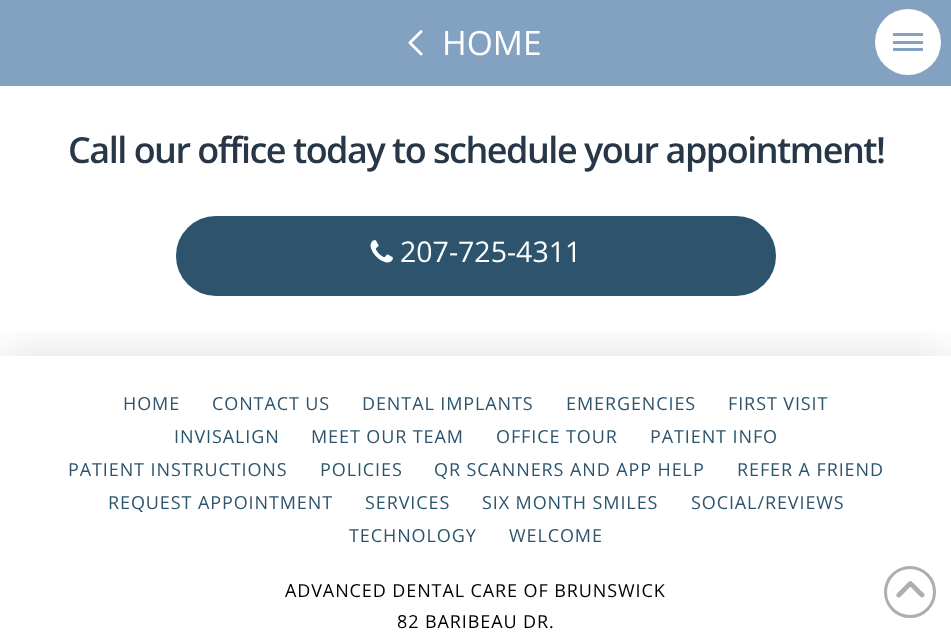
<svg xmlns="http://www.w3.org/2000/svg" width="951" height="633">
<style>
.a{font:33.5px Open Sans;fill:#fff}
.b{font:600 36px Open Sans;letter-spacing:-1.5px;fill:#273747}
.c{font:28.5px Open Sans;fill:#fff}
.d{font:18px Open Sans;letter-spacing:0.9px;fill:#2d546c}
.e{font:18px Open Sans;letter-spacing:0.9px;fill:#000}
</style>
<defs>
<clipPath id="clip1"><path d="M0 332h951v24H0z"/></clipPath>
</defs>
<rect width="100%" height="100%" fill="#fff"/>
<path fill="#83a1c0" d="M0 0h951v86H0z"/>
<image href="1.png" x="408" y="30" width="15" height="26"/>
<circle fill="#fff" cx="908" cy="42" r="33"/>
<path fill="#83a1c0" d="M893 33h30v3H893z"/>
<path fill="#83a1c0" d="M893 41h30v3H893z"/>
<path fill="#83a1c0" d="M893 48h30v3H893z"/>
<rect fill="#2d546c" stroke="#2d546c" stroke-width="2" x="177" y="217" width="598" height="78" rx="39"/>
<image href="2.png" x="370" y="240" width="23" height="23"/>
<g clip-path="url(#clip1)">
<path fill="#00000026" filter="blur(24px)" d="M0 359h951v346H0z"/>
</g>
<circle fill="none" stroke="#aeaeae" stroke-width="3" cx="910" cy="592" r="24.5"/>
<image href="3.png" x="896" y="581" width="29" height="17"/>
<text class="a" x="442" y="55">HOME</text>
<text class="b" x="68" y="163">Call our office today to schedule your appointment!</text>
<text class="c" x="400" y="262">207-725-4311</text>
<text class="d" x="123" y="410">HOME</text>
<text class="d" x="212" y="410">CONTACT US</text>
<text class="d" x="362" y="410">DENTAL IMPLANTS</text>
<text class="d" x="566" y="410">EMERGENCIES</text>
<text class="d" x="728" y="410">FIRST VISIT</text>
<text class="d" x="174" y="443">INVISALIGN</text>
<text class="d" x="311" y="443">MEET OUR TEAM</text>
<text class="d" x="496" y="443">OFFICE TOUR</text>
<text class="d" x="650" y="443">PATIENT INFO</text>
<text class="d" x="68" y="476">PATIENT INSTRUCTIONS</text>
<text class="d" x="320" y="476">POLICIES</text>
<text class="d" x="434" y="476">QR SCANNERS AND APP HELP</text>
<text class="d" x="737" y="476">REFER A FRIEND</text>
<text class="d" x="108" y="509">REQUEST APPOINTMENT</text>
<text class="d" x="365" y="509">SERVICES</text>
<text class="d" x="482" y="509">SIX MONTH SMILES</text>
<text class="d" x="691" y="509">SOCIAL/REVIEWS</text>
<text class="d" x="349" y="542">TECHNOLOGY</text>
<text class="d" x="509" y="542">WELCOME</text>
<text class="e" x="285" y="597">ADVANCED DENTAL CARE OF BRUNSWICK</text>
<text class="e" x="397" y="628">82 BARIBEAU DR.</text>
</svg>
